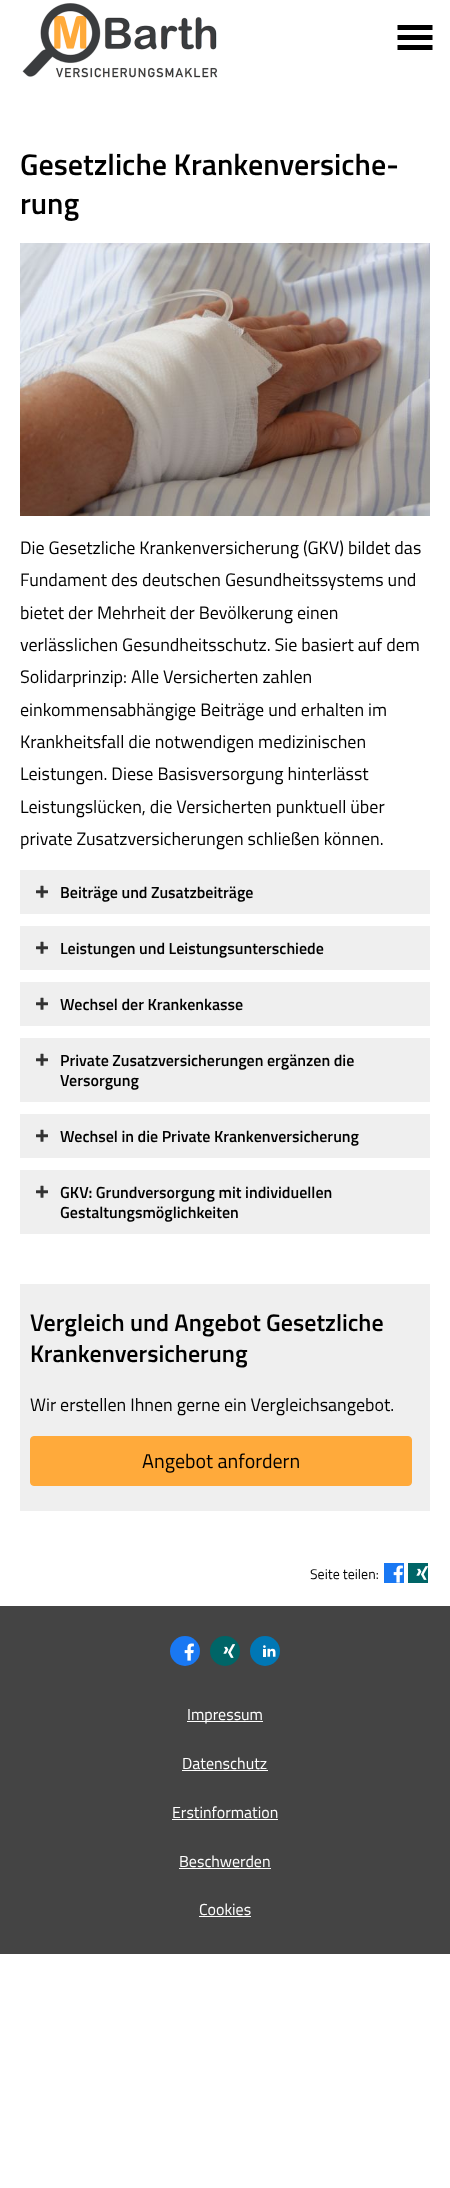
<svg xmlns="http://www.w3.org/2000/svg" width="450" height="2188">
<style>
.a{font:600 30px Titillium Web;fill:#000}
.b{font:18px Titillium Web;fill:#000}
.c{font:600 16px Titillium Web;fill:#000}
.d{font:600 24px Titillium Web;fill:#000}
.e{font:20px Titillium Web;fill:#000}
.f{font:14px Titillium Web;fill:#000}
.g{font:16px Titillium Web;fill:#fff}
</style>
<rect width="100%" height="100%" fill="#fff"/>
<image href="1.png" x="22" y="3" width="196" height="75"/>
<path fill="#000" d="M397.5 25h35v5h-35zm0 10h35v5h-35zm0 10h35v5h-35z"/>
<image href="2.png" x="20" y="243" width="410" height="273"/>
<path fill="#efefef" d="M20 870h410v44H20z"/>
<image href="3.png" x="36" y="885" width="12" height="13"/>
<path fill="#efefef" d="M20 926h410v44H20z"/>
<image href="3.png" x="36" y="941" width="12" height="13"/>
<path fill="#efefef" d="M20 982h410v44H20z"/>
<image href="3.png" x="36" y="997" width="12" height="13"/>
<path fill="#efefef" d="M20 1038h410v64H20z"/>
<image href="3.png" x="36" y="1053" width="12" height="13"/>
<path fill="#efefef" d="M20 1114h410v44H20z"/>
<image href="3.png" x="36" y="1129" width="12" height="13"/>
<path fill="#efefef" d="M20 1170h410v64H20z"/>
<image href="3.png" x="36" y="1185" width="12" height="13"/>
<path fill="#efefef" d="M20 1284h410v227H20z"/>
<rect fill="#ffaa3b" stroke="#ffaa3b" x="30.5" y="1436.5" width="381" height="49" rx="3.5"/>
<path fill="#1978f3" d="M384 1563h20v20H384z"/>
<image href="4.png" x="393" y="1565" width="10" height="18"/>
<path fill="#006567" d="M408 1563h20v20H408z"/>
<image href="5.png" x="416" y="1566" width="12" height="14"/>
<path fill="#444" d="M0 1606h450v348H0z"/>
<circle fill="#1978f3" cx="185" cy="1651" r="15"/>
<image href="4.png" x="184" y="1643" width="10" height="18"/>
<circle fill="#006567" cx="225" cy="1651" r="15"/>
<image href="6.png" x="223" y="1644" width="13" height="14"/>
<circle fill="#0077b5" cx="265" cy="1651" r="15"/>
<image href="7.png" x="263" y="1645" width="13" height="12"/>
<path fill="#fff" d="M187 1721h76v1H187z"/>
<path fill="#fff" d="M182 1770h86v1H182z"/>
<path fill="#fff" d="M172 1819h106v1H172z"/>
<path fill="#fff" d="M179 1868h92v1H179z"/>
<path fill="#fff" d="M199 1916h52v1H199z"/>
<text class="a" x="20" y="175">Gesetzliche Krankenversiche-</text>
<text class="a" x="20" y="214">rung</text>
<text class="b" x="20" y="554">Die Gesetzliche Krankenversicherung (GKV) bildet das</text>
<text class="b" x="20" y="586">Fundament des deutschen Gesundheitssystems und</text>
<text class="b" x="20" y="619">bietet der Mehrheit der Bevölkerung einen</text>
<text class="b" x="20" y="651">verlässlichen Gesundheitsschutz. Sie basiert auf dem</text>
<text class="b" x="20" y="683">Solidarprinzip: Alle Versicherten zahlen</text>
<text class="b" x="20" y="716">einkommensabhängige Beiträge und erhalten im</text>
<text class="b" x="20" y="748">Krankheitsfall die notwendigen medizinischen</text>
<text class="b" x="20" y="780">Leistungen. Diese Basisversorgung hinterlässt</text>
<text class="b" x="20" y="813">Leistungslücken, die Versicherten punktuell über</text>
<text class="b" x="20" y="845">private Zusatzversicherungen schließen können.</text>
<text class="c" x="60" y="898">Beiträge und Zusatzbeiträge</text>
<text class="c" x="60" y="954">Leistungen und Leistungsunterschiede</text>
<text class="c" x="60" y="1010">Wechsel der Krankenkasse</text>
<text class="c" x="60" y="1066">Private Zusatzversicherungen ergänzen die</text>
<text class="c" x="60" y="1086">Versorgung</text>
<text class="c" x="60" y="1142">Wechsel in die Private Krankenversicherung</text>
<text class="c" x="60" y="1198">GKV: Grundversorgung mit individuellen</text>
<text class="c" x="60" y="1218">Gestaltungsmöglichkeiten</text>
<text class="d" x="30" y="1331">Vergleich und Angebot Gesetzliche</text>
<text class="d" x="30" y="1362">Krankenversicherung</text>
<text class="b" x="30" y="1411">Wir erstellen Ihnen gerne ein Vergleichsangebot.</text>
<text class="e" x="142" y="1468">Angebot anfordern</text>
<text class="f" x="310" y="1579">Seite teilen:</text>
<text class="g" x="187" y="1720">Impressum</text>
<text class="g" x="182" y="1769">Datenschutz</text>
<text class="g" x="172" y="1818">Erstinformation</text>
<text class="g" x="179" y="1867">Beschwerden</text>
<text class="g" x="199" y="1915">Cookies</text>
</svg>
